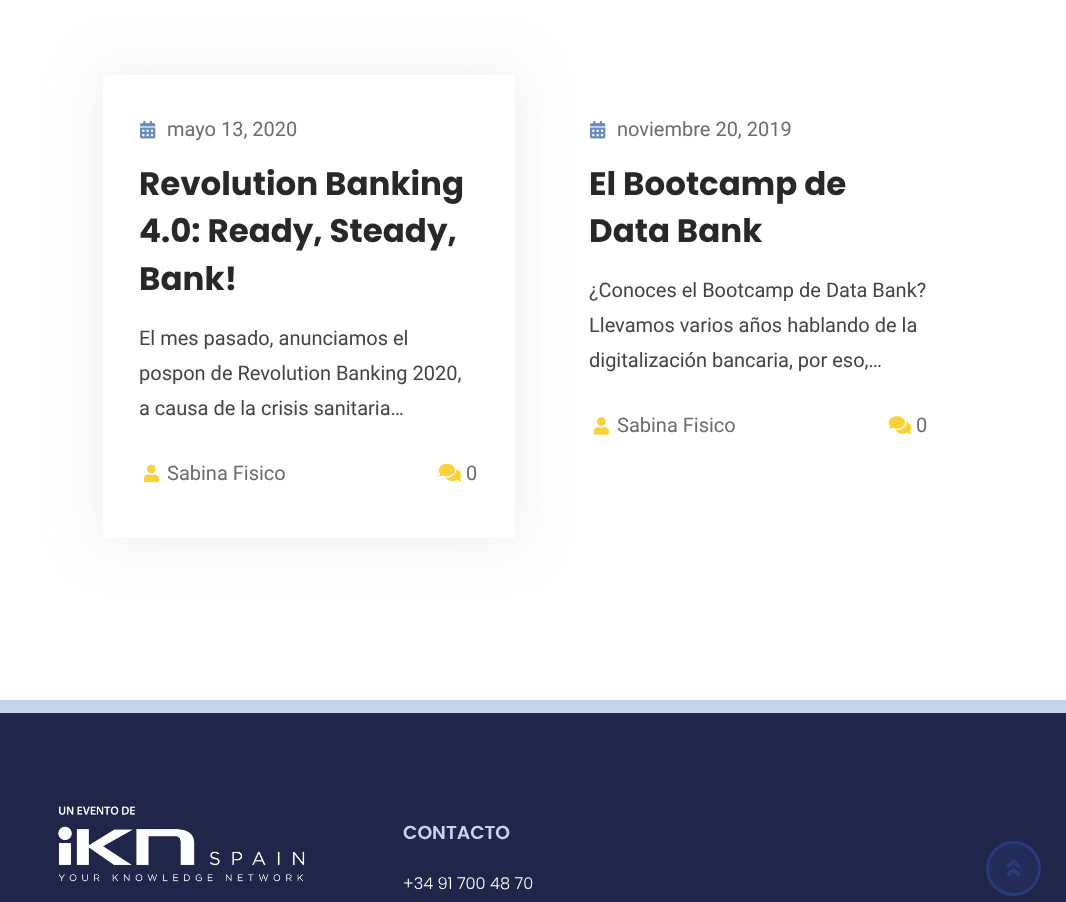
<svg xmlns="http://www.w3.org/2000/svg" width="1066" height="902">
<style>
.a{font:20px Roboto;fill:#6c6c6c}
.b{font:bold 32.5px Poppins;fill:#282828}
.c{font:20px Roboto;fill:#444}
.d{font:600 18.75px Poppins;fill:#c5d3ee}
.e{font:300 16.25px Poppins;fill:#fff}
</style>
<rect width="100%" height="100%" fill="#fff"/>
<path fill="#d8d8d880" filter="blur(25px)" d="M103 75h412v463H103z"/>
<path fill="#fff" d="M103 75h412v463H103z"/>
<image href="1.png" x="140" y="120" width="16" height="19"/>
<image href="2.png" x="143" y="464" width="17" height="19"/>
<image href="3.png" x="438" y="463" width="24" height="19"/>
<image href="1.png" x="590" y="120" width="16" height="19"/>
<image href="4.png" x="593" y="417" width="17" height="18"/>
<image href="5.png" x="888" y="416" width="24" height="18"/>
<path fill="#20264a" d="M0 713h1066v189H0z"/>
<path fill="#c5d3ee" d="M0 700h1066v13H0z"/>
<image href="6.png" x="58" y="806" width="247" height="76"/>
<circle fill="#232c59" stroke="#293a7c" stroke-width="3" cx="1013.5" cy="868.5" r="26"/>
<image href="7.png" x="1006" y="859" width="15" height="18"/>
<text class="a" x="167" y="136">mayo 13, 2020</text>
<text class="b" x="139" y="195">Revolution Banking</text>
<text class="b" x="139" y="242">4.0: Ready, Steady,</text>
<text class="b" x="139" y="290">Bank!</text>
<text class="c" x="139" y="345">El mes pasado, anunciamos el</text>
<text class="c" x="139" y="380">pospon de Revolution Banking 2020,</text>
<text class="c" x="139" y="415">a causa de la crisis sanitaria…</text>
<text class="a" x="167" y="480">Sabina Fisico</text>
<text class="a" x="466" y="480">0</text>
<text class="a" x="617" y="136">noviembre 20, 2019</text>
<text class="b" x="589" y="195">El Bootcamp de</text>
<text class="b" x="589" y="242">Data Bank</text>
<text class="c" x="589" y="297">¿Conoces el Bootcamp de Data Bank?</text>
<text class="c" x="589" y="332">Llevamos varios años hablando de la</text>
<text class="c" x="589" y="367">digitalización bancaria, por eso,…</text>
<text class="a" x="617" y="432">Sabina Fisico</text>
<text class="a" x="916" y="432">0</text>
<text class="d" x="403" y="839">CONTACTO</text>
<text class="e" x="403" y="889">+34 91 700 48 70</text>
</svg>
